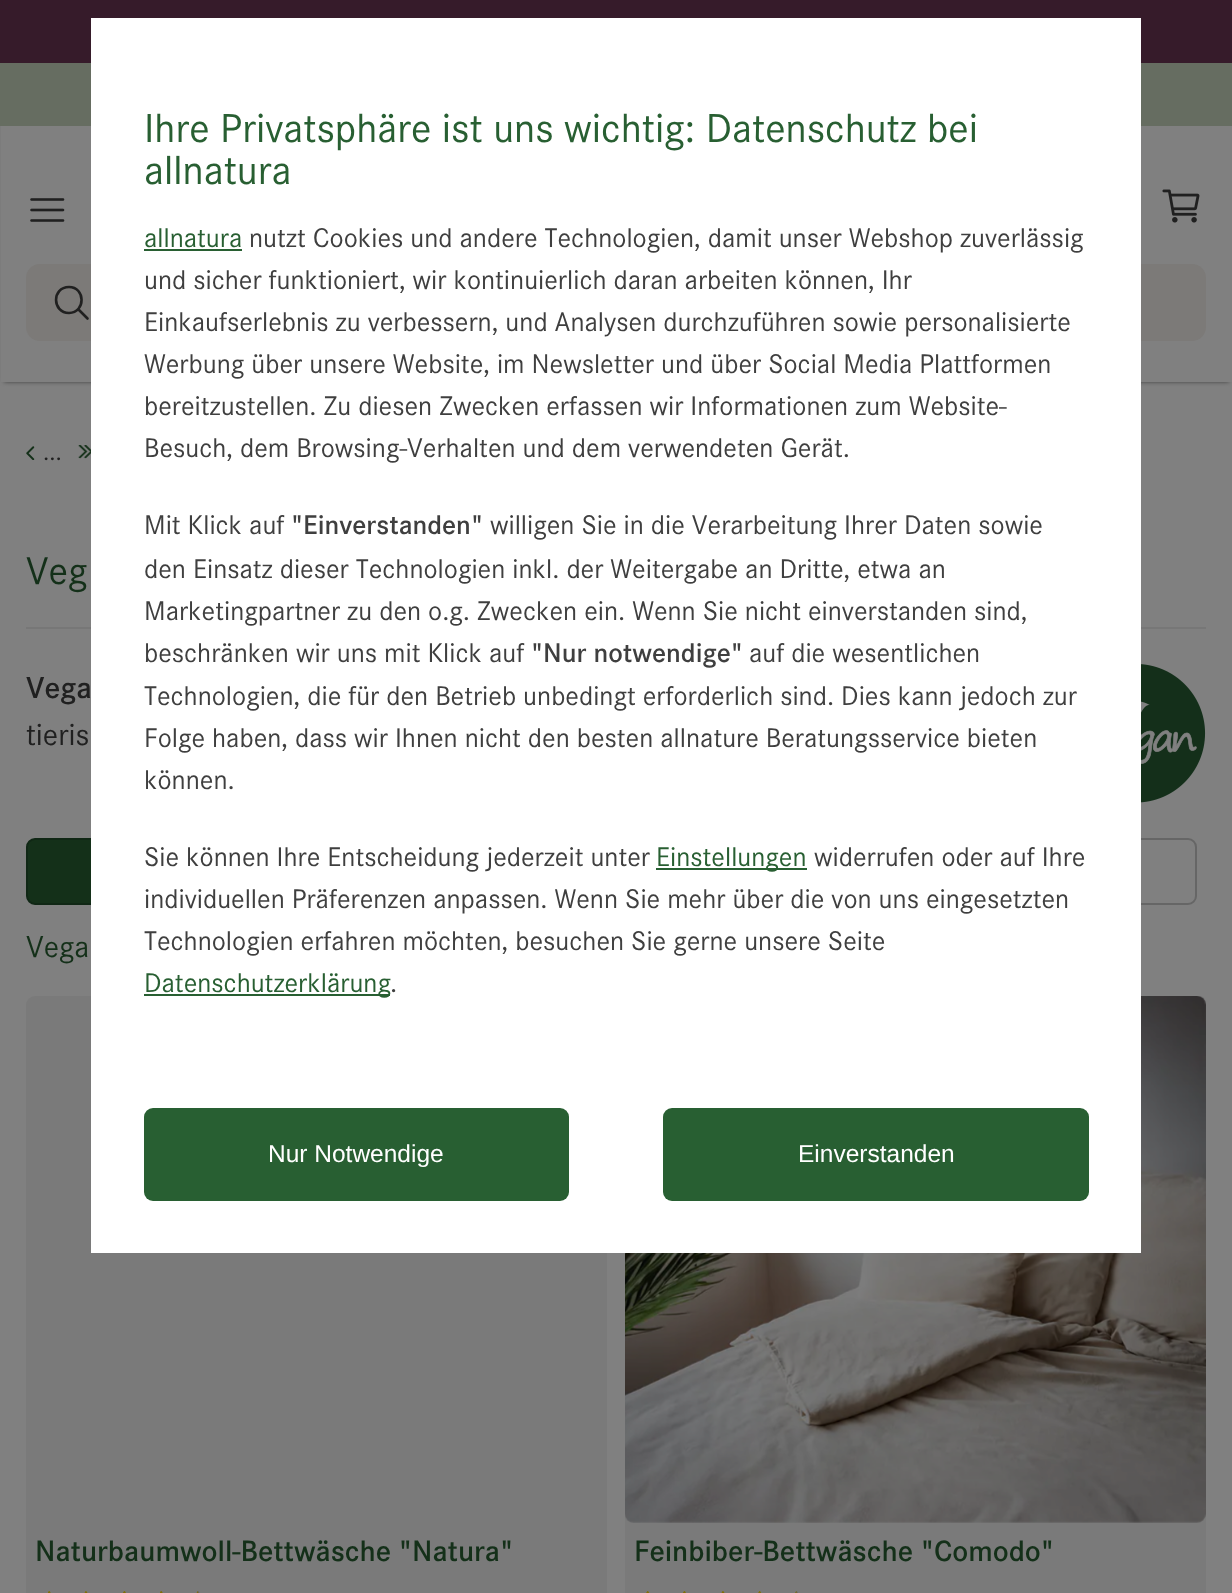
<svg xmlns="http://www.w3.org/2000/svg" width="1232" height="1593">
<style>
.a{font:42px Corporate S;fill:#285f32}
.b{font:28px Corporate S;fill:#285f32}
.c{font:28px Corporate S;fill:#3f3f3f}
.d{font:28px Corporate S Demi;fill:#3f3f3f}
.e{font:24.5px Liberation Sans;fill:#fff}
.f{font:24.5px Corporate S;fill:#202020}
.g{font:40px Corporate S;fill:#143019}
.h{font:31.5px Corporate S Demi;fill:#202020}
.i{font:31.5px Corporate S;fill:#202020}
.j{font:31.5px Corporate S;fill:#143019}
.k{font:30.6px Corporate S Demi;fill:#143019}
</style>
<rect width="100%" height="100%" fill="#808080"/>
<path fill="#404040" filter="blur(2px)" d="M4 7h1225v375H4z"/>
<path fill="#808080" d="M1 126h1231v256H1z"/>
<path fill="#361b2a" d="M0 0h1232v63H0z"/>
<path fill="#666d61" d="M0 63h1232v63H0z"/>
<rect fill="#7c7a78" x="26" y="264" width="1180" height="77" rx="14"/>
<path fill="#777" d="M26 627h1180v2H26z"/>
<rect fill="#143019" stroke="#102715" stroke-width="2" x="27" y="839" width="576" height="65" rx="8"/>
<rect fill="none" stroke="#666" stroke-width="2" x="622" y="839" width="574" height="65" rx="8"/>
<rect fill="#7a7a7a" x="26" y="996" width="581" height="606" rx="9"/>
<rect fill="#7a7a7a" x="625" y="996" width="581" height="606" rx="9"/>
<image href="14.png" x="625" y="996" width="581" height="527"/>
<path fill="#fff" d="M91 18h1050v1235H91z"/>
<path fill="#285f32" d="M144 249h98v2H144z"/>
<path fill="#285f32" d="M656 868h151v2H656z"/>
<path fill="#285f32" d="M144 994h246v2H144z"/>
<rect fill="#285f32" x="144" y="1108" width="425" height="93" rx="9"/>
<rect fill="#285f32" x="663" y="1108" width="426" height="93" rx="9"/>
<image href="1.png" x="30" y="198" width="35" height="24"/>
<image href="2.png" x="1162" y="189" width="38" height="34"/>
<path fill="none" stroke="#202020" stroke-width="2.6" d="M69 287c-17.5 0-17 26 0 26c17-.5 16.5-26 0-26z"/>
<path fill="none" stroke="#202020" stroke-width="2.6" stroke-linecap="round" d="M78.5 309.5l9 9"/>
<image href="3.png" x="26" y="446" width="9" height="14"/>
<image href="4.png" x="78" y="445" width="13" height="14"/>
<image href="5.png" x="1141" y="664" width="65" height="139"/>
<image href="6.png" x="48" y="1591" width="3" height="2"/>
<image href="7.png" x="48" y="1591" width="2" height="2"/>
<image href="8.png" x="84" y="1591" width="4" height="2"/>
<image href="9.png" x="84" y="1591" width="3" height="2"/>
<image href="10.png" x="123" y="1591" width="3" height="2"/>
<image href="11.png" x="123" y="1591" width="2" height="2"/>
<image href="6.png" x="160" y="1591" width="3" height="2"/>
<image href="7.png" x="160" y="1591" width="2" height="2"/>
<image href="12.png" x="196" y="1591" width="4" height="2"/>
<image href="13.png" x="196" y="1591" width="3" height="2"/>
<image href="15.png" x="646" y="1591" width="4" height="2"/>
<image href="16.png" x="646" y="1591" width="2" height="2"/>
<image href="10.png" x="683" y="1591" width="3" height="2"/>
<image href="11.png" x="683" y="1591" width="2" height="2"/>
<image href="8.png" x="721" y="1591" width="4" height="2"/>
<image href="9.png" x="721" y="1591" width="3" height="2"/>
<image href="15.png" x="758" y="1591" width="4" height="2"/>
<image href="16.png" x="758" y="1591" width="2" height="2"/>
<image href="17.png" x="795" y="1591" width="3" height="2"/>
<image href="18.png" x="795" y="1591" width="2" height="2"/>
<text class="a" x="144" y="142">Ihre Privatsphäre ist uns wichtig: Datenschutz bei</text>
<text class="a" x="144" y="184">allnatura</text>
<text class="b" x="144" y="247">allnatura</text>
<text class="c" x="249" y="247">nutzt Cookies und andere Technologien, damit unser Webshop zuverlässig</text>
<text class="c" x="144" y="289">und sicher funktioniert, wir kontinuierlich daran arbeiten können, Ihr</text>
<text class="c" x="144" y="331">Einkaufserlebnis zu verbessern, und Analysen durchzuführen sowie personalisierte</text>
<text class="c" x="144" y="373">Werbung über unsere Website, im Newsletter und über Social Media Plattformen</text>
<text class="c" x="144" y="415">bereitzustellen. Zu diesen Zwecken erfassen wir Informationen zum Website-</text>
<text class="c" x="144" y="457">Besuch, dem Browsing-Verhalten und dem verwendeten Gerät.</text>
<text class="c" x="144" y="534">Mit Klick auf</text>
<text class="d" x="291" y="534">"Einverstanden"</text>
<text class="c" x="490" y="534">willigen Sie in die Verarbeitung Ihrer Daten sowie</text>
<text class="c" x="144" y="578">den Einsatz dieser Technologien inkl. der Weitergabe an Dritte, etwa an</text>
<text class="c" x="144" y="620">Marketingpartner zu den o.g. Zwecken ein. Wenn Sie nicht einverstanden sind,</text>
<text class="c" x="144" y="662">beschränken wir uns mit Klick auf</text>
<text class="d" x="531" y="662">"Nur notwendige"</text>
<text class="c" x="749" y="662">auf die wesentlichen</text>
<text class="c" x="144" y="705">Technologien, die für den Betrieb unbedingt erforderlich sind. Dies kann jedoch zur</text>
<text class="c" x="144" y="747">Folge haben, dass wir Ihnen nicht den besten allnature Beratungsservice bieten</text>
<text class="c" x="144" y="789">können.</text>
<text class="c" x="144" y="866">Sie können Ihre Entscheidung jederzeit unter</text>
<text class="b" x="656" y="866">Einstellungen</text>
<text class="c" x="814" y="866">widerrufen oder auf Ihre</text>
<text class="c" x="144" y="908">individuellen Präferenzen anpassen. Wenn Sie mehr über die von uns eingesetzten</text>
<text class="c" x="144" y="950">Technologien erfahren möchten, besuchen Sie gerne unsere Seite</text>
<text class="b" x="144" y="992">Datenschutzerklärung</text>
<text class="c" x="390" y="992">.</text>
<text class="e" x="268" y="1162">Nur Notwendige</text>
<text class="e" x="798" y="1162">Einverstanden</text>
<text class="f" x="43" y="460">...</text>
<text class="g" x="26" y="584">Veg</text>
<text class="h" x="26" y="698">Vega</text>
<text class="i" x="26" y="745">tieris</text>
<text class="j" x="26" y="957">Vega</text>
<text class="k" x="35" y="1561">Naturbaumwoll-Bettwäsche "Natura"</text>
<text class="k" x="634" y="1561">Feinbiber-Bettwäsche "Comodo"</text>
</svg>
